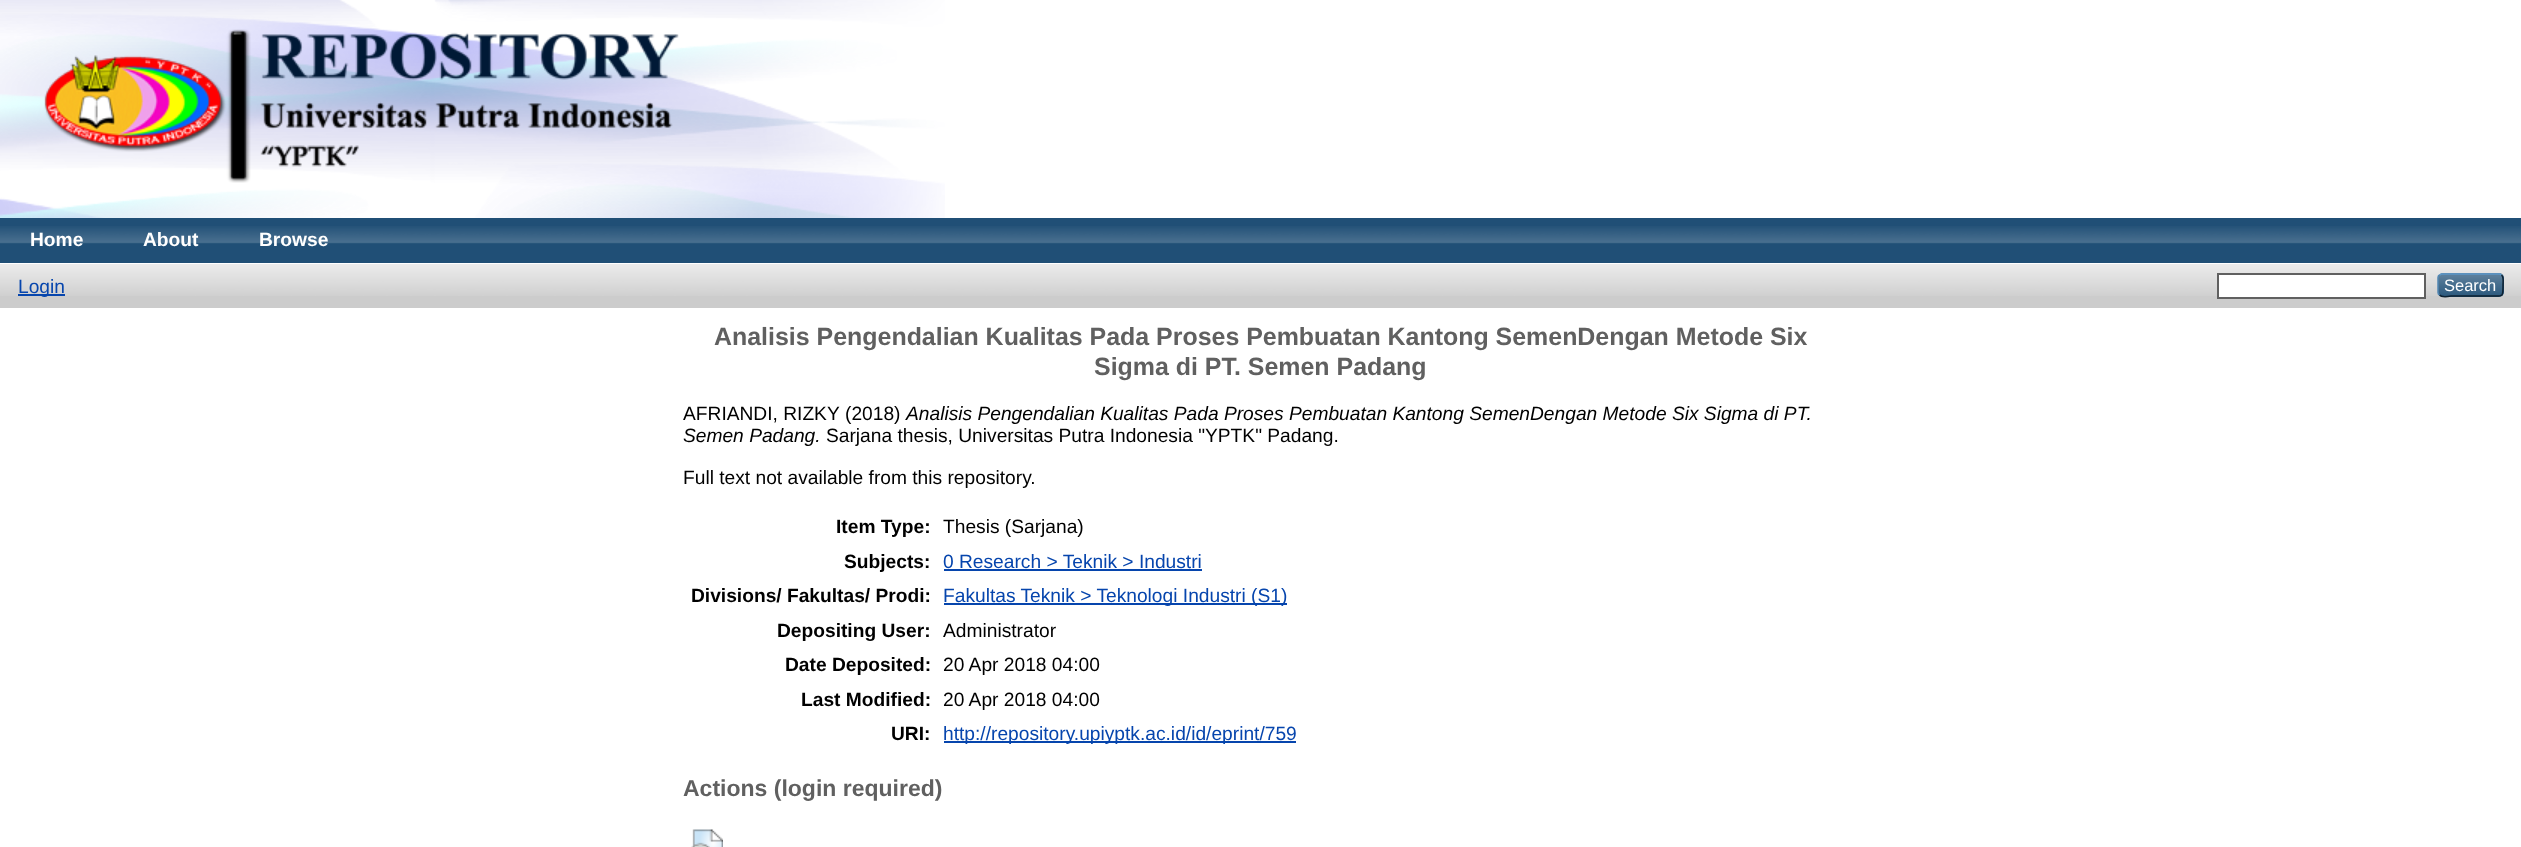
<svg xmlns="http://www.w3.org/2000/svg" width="2521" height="847">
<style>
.a{font:bold 19.2px Liberation Sans;fill:#fff}
.b{font:19.2px Liberation Sans;fill:#0645ad}
.c{font:16.5px Liberation Sans;fill:#fff}
.d{font:bold 24.95px Liberation Sans;fill:#606060}
.e{font:19.2px Liberation Sans;fill:#000}
.f{font:italic 19.2px Liberation Sans;fill:#000}
.g{font:bold 19.2px Liberation Sans;fill:#000}
.h{font:bold 23px Liberation Sans;fill:#606060}
</style>
<rect width="100%" height="100%" fill="#fff"/>
<image href="1.png" x="0" y="0" width="945" height="218"/>
<image href="2.png" x="44" y="29" width="635" height="154"/>
<path fill="#204f76" d="M0 218h2521v45H0z"/>
<image href="3.png" x="0" y="226" width="2521" height="18"/>
<path fill="#ccc" d="M0 264h2521v44H0z"/>
<image href="4.png" x="0" y="264" width="2521" height="32"/>
<path fill="#0645ad" d="M18 294h47v2H18z"/>
<path fill="#fff" stroke="#606060" stroke-width="2" d="M2218 274h207v24H2218z"/>
<rect fill="#1f4f76" x="2438" y="273" width="66" height="24" rx="5"/>
<image href="5.png" x="2438" y="273" width="66" height="24"/>
<path fill="none" stroke="#5b97c7" stroke-width="1.5" d="M2439.5 275l2-1h58l2 1"/>
<path fill="none" stroke="#0d2131" stroke-width="1.5" d="M2501.5 275c2.5 2 1.5 7 1.5 10c0 13 .5 11-13.5 11h-38c-.5 0-9.5 2-12-1"/>
<path fill="none" stroke="#5287b3" stroke-width="1.5" d="M2439.5 295c-1-.5-1.5-1.5-1.5-2.5v-15c0-1 .5-2 1.5-2.5"/>
<path fill="#0645ad" d="M944 569h258v2H944z"/>
<path fill="#0645ad" d="M944 603h343v2H944z"/>
<path fill="#0645ad" d="M944 741h352v2H944z"/>
<image href="6.png" x="691" y="829" width="32" height="18"/>
<text class="a" x="30" y="246">Home</text>
<text class="a" x="143" y="246">About</text>
<text class="a" x="259" y="246">Browse</text>
<text class="b" x="18" y="293">Login</text>
<text class="c" x="2444" y="291">Search</text>
<text class="d" x="714" y="345">Analisis Pengendalian Kualitas Pada Proses Pembuatan Kantong SemenDengan Metode Six</text>
<text class="d" x="1094" y="375">Sigma di PT. Semen Padang</text>
<text class="e" x="683" y="420">AFRIANDI, RIZKY</text>
<text class="e" x="845" y="420">(2018)</text>
<text class="f" x="906" y="420">Analisis Pengendalian Kualitas Pada Proses Pembuatan Kantong SemenDengan Metode Six Sigma di PT.</text>
<text class="f" x="683" y="442">Semen Padang.</text>
<text class="e" x="826" y="442">Sarjana thesis, Universitas Putra Indonesia "YPTK" Padang.</text>
<text class="e" x="683" y="484">Full text not available from this repository.</text>
<text class="g" x="836" y="533">Item Type:</text>
<text class="e" x="943" y="533">Thesis (Sarjana)</text>
<text class="g" x="844" y="568">Subjects:</text>
<text class="b" x="943" y="568">0 Research &gt; Teknik &gt; Industri</text>
<text class="g" x="691" y="602">Divisions/ Fakultas/ Prodi:</text>
<text class="b" x="943" y="602">Fakultas Teknik &gt; Teknologi Industri (S1)</text>
<text class="g" x="777" y="637">Depositing User:</text>
<text class="e" x="943" y="637">Administrator</text>
<text class="g" x="785" y="671">Date Deposited:</text>
<text class="e" x="943" y="671">20 Apr 2018 04:00</text>
<text class="g" x="801" y="706">Last Modified:</text>
<text class="e" x="943" y="706">20 Apr 2018 04:00</text>
<text class="g" x="891" y="740">URI:</text>
<text class="b" x="943" y="740">http://repository.upiyptk.ac.id/id/eprint/759</text>
<text class="h" x="683" y="796">Actions (login required)</text>
</svg>
